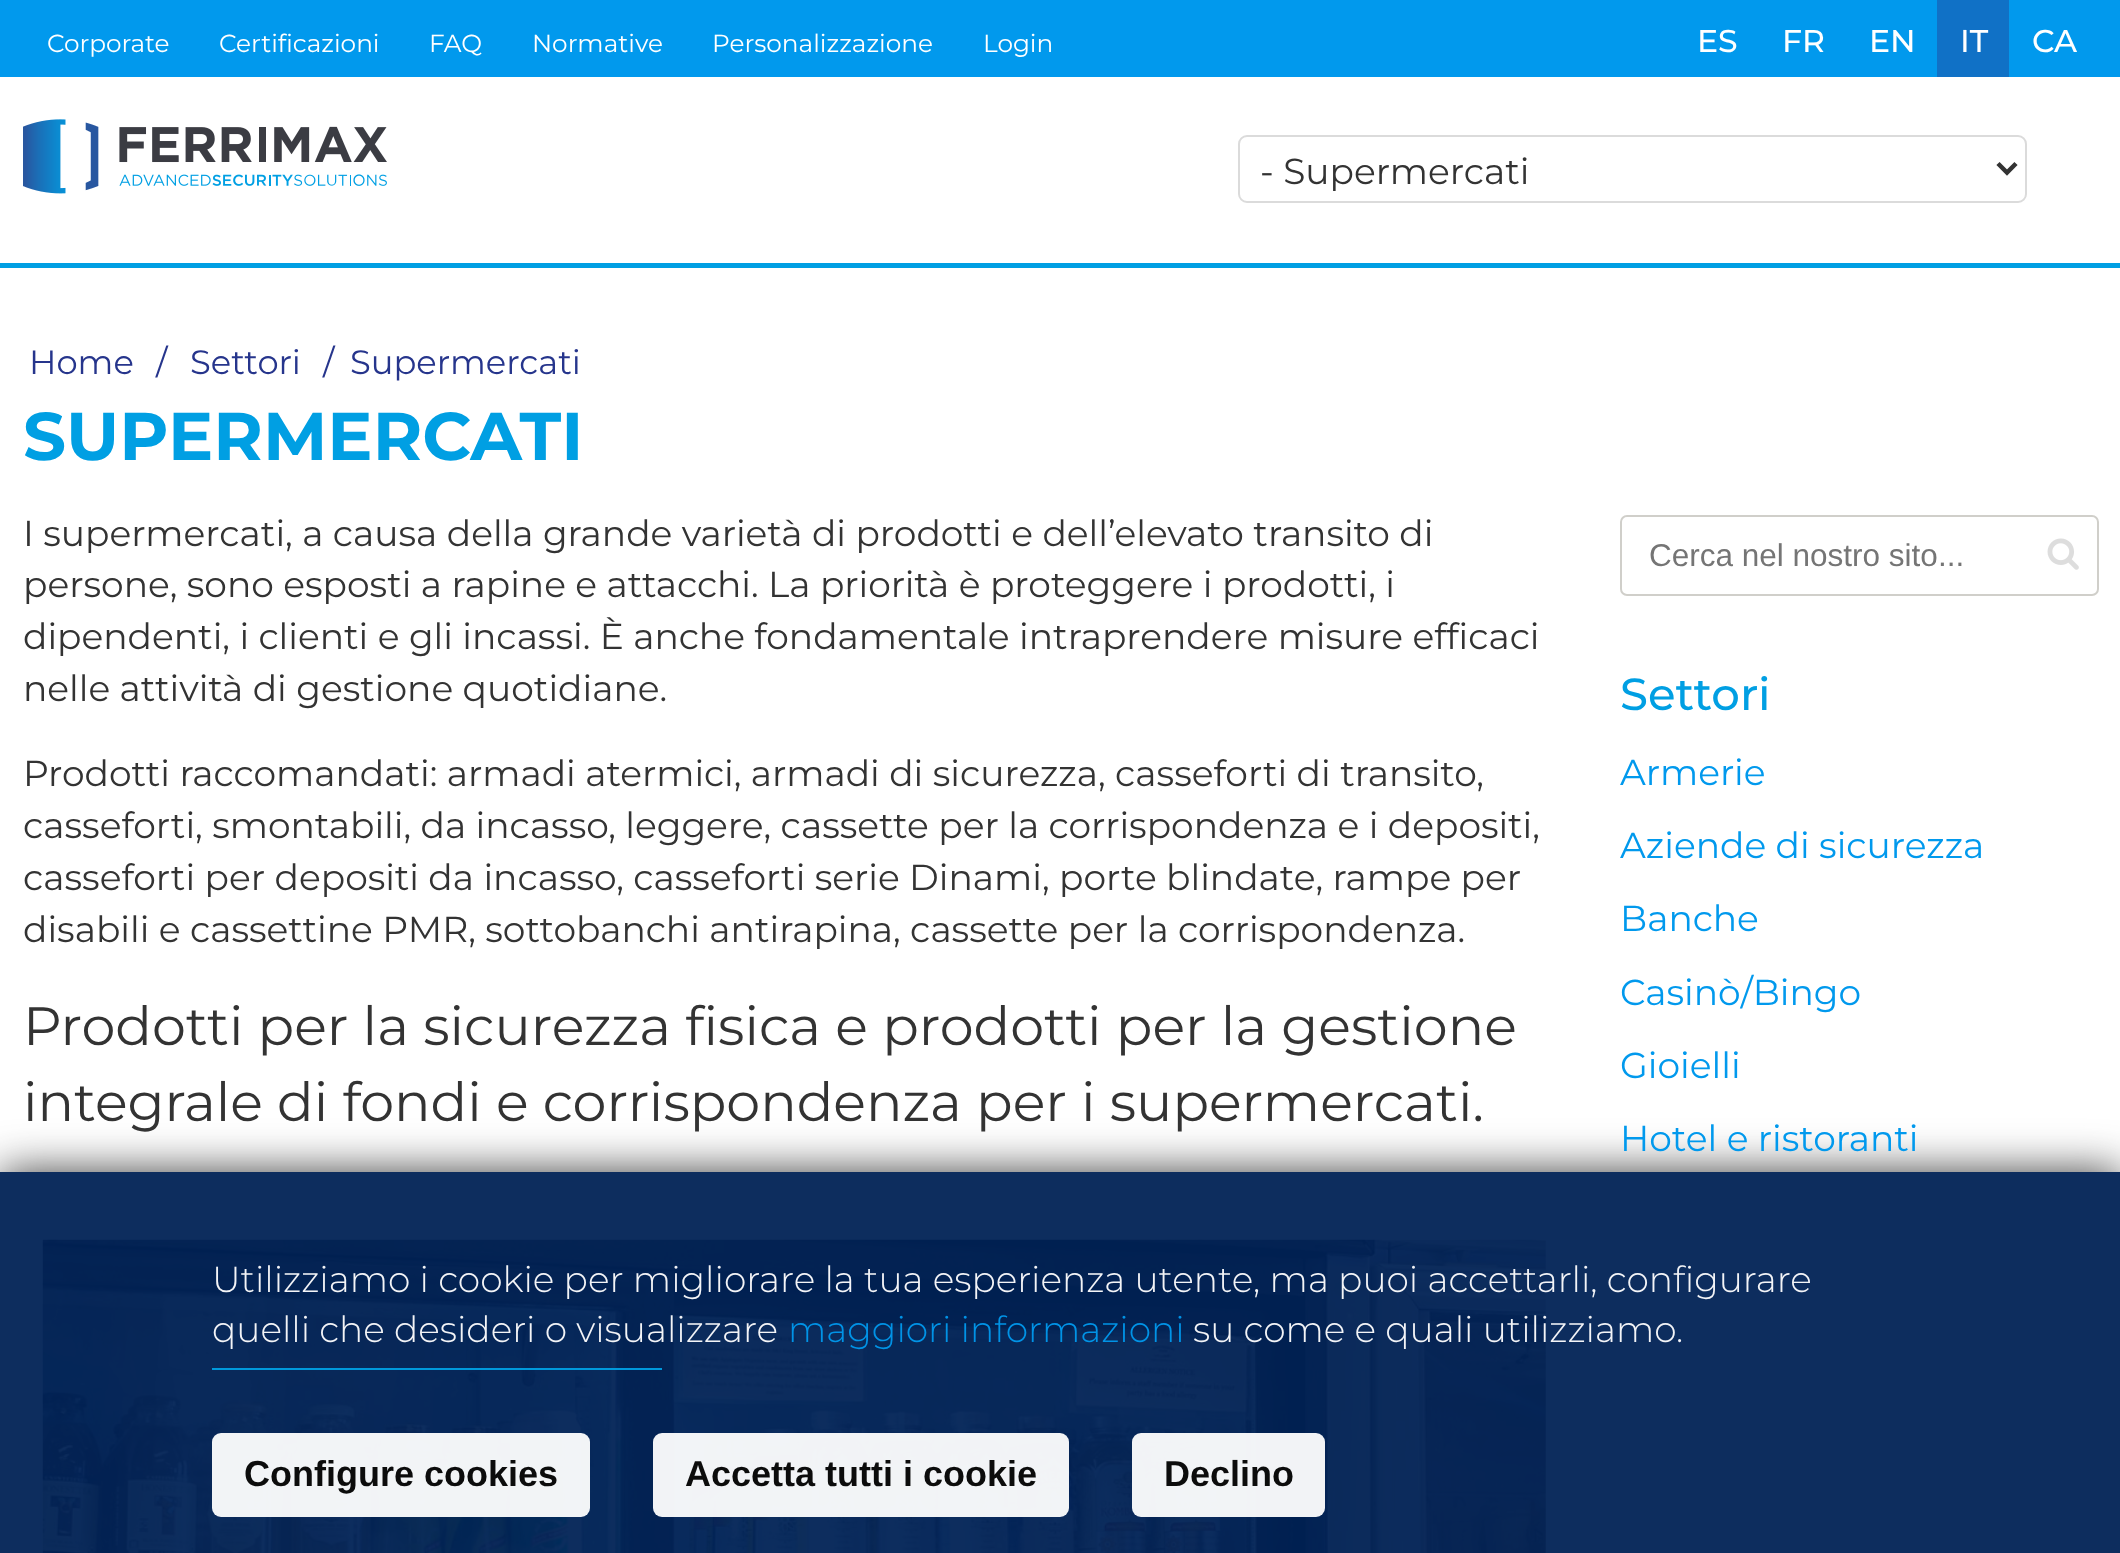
<svg xmlns="http://www.w3.org/2000/svg" width="2120" height="1553">
<style>
.a{font:24.75px Montserrat;fill:#fff}
.b{font:500 31.5px Montserrat;fill:#fff}
.c{font:36px Montserrat;fill:#333}
.d{font:33.75px Montserrat;fill:#26358c}
.e{font:bold 67.5px Montserrat;fill:#009fe3}
.f{font:54px Montserrat;fill:#333}
.g{font:31.5px Liberation Sans;fill:#757575}
.h{font:500 45px Montserrat;fill:#009fe3}
.i{font:36px Montserrat;fill:#0199ed}
.j{font:300 36px Montserrat;fill:#f3f4f7}
.k{font:300 36px Montserrat;fill:#0193e6}
.l{font:bold 36px Liberation Sans;fill:#0c0c0c}
</style>
<defs>
<clipPath id="clip1"><path d="M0 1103h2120v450h-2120zm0 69h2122v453h-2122z" clip-rule="evenodd"/></clipPath>
</defs>
<rect width="100%" height="100%" fill="#fff"/>
<path fill="#0199ed" d="M0 0h2120v77H0z"/>
<path fill="#1071c6" d="M1937 0h72v77H1937z"/>
<path fill="#009fe3" d="M0 263h2120v5H0z"/>
<image href="1.png" x="23" y="119" width="364" height="75"/>
<rect fill="none" stroke="#dbdbdb" stroke-width="2" x="1239" y="136" width="787" height="66" rx="8"/>
<path fill="none" stroke="#333" stroke-width="4.5" d="M1998 163.5l9 9l9-9"/>
<image href="2.png" x="42" y="1239" width="1504" height="314"/>
<rect fill="none" stroke="#d0cfca" stroke-width="2" x="1621" y="516" width="477" height="79" rx="6"/>
<image href="3.png" x="2047" y="538" width="32" height="32"/>
<g clip-path="url(#clip1)">
<path fill="#333333f2" filter="blur(22.5px)" d="M0 1172h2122v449H0z"/>
</g>
<path fill="#002255f2" d="M0 1172h2120v381H0z"/>
<path fill="#009fe3f2" d="M212 1368h450v2H212z"/>
<rect fill="#fffffff2" x="212" y="1433" width="378" height="84" rx="9"/>
<rect fill="#fffffff2" x="653" y="1433" width="416" height="84" rx="9"/>
<rect fill="#fffffff2" x="1132" y="1433" width="193" height="84" rx="9"/>
<text class="a" x="47" y="52">Corporate</text>
<text class="a" x="219" y="52">Certificazioni</text>
<text class="a" x="429" y="52">FAQ</text>
<text class="a" x="532" y="52">Normative</text>
<text class="a" x="712" y="52">Personalizzazione</text>
<text class="a" x="983" y="52">Login</text>
<text class="b" x="1697" y="52">ES</text>
<text class="b" x="1782" y="52">FR</text>
<text class="b" x="1869" y="52">EN</text>
<text class="b" x="1960" y="52">IT</text>
<text class="b" x="2032" y="52">CA</text>
<text class="c" x="1260" y="184">- Supermercati</text>
<text class="d" x="29" y="374">Home</text>
<text class="d" x="156" y="374">/</text>
<text class="d" x="190" y="374">Settori</text>
<text class="d" x="323" y="374">/</text>
<text class="d" x="350" y="374">Supermercati</text>
<text class="e" x="23" y="460">SUPERMERCATI</text>
<text class="c" x="23" y="546">I supermercati, a causa della grande varietà di prodotti e dell’elevato transito di</text>
<text class="c" x="23" y="597">persone, sono esposti a rapine e attacchi. La priorità è proteggere i prodotti, i</text>
<text class="c" x="23" y="649">dipendenti, i clienti e gli incassi. È anche fondamentale intraprendere misure efficaci</text>
<text class="c" x="23" y="701">nelle attività di gestione quotidiane.</text>
<text class="c" x="23" y="786">Prodotti raccomandati: armadi atermici, armadi di sicurezza, casseforti di transito,</text>
<text class="c" x="23" y="838">casseforti, smontabili, da incasso, leggere, cassette per la corrispondenza e i depositi,</text>
<text class="c" x="23" y="890">casseforti per depositi da incasso, casseforti serie Dinami, porte blindate, rampe per</text>
<text class="c" x="23" y="942">disabili e cassettine PMR, sottobanchi antirapina, cassette per la corrispondenza.</text>
<text class="f" x="23" y="1045">Prodotti per la sicurezza fisica e prodotti per la gestione</text>
<text class="f" x="23" y="1121">integrale di fondi e corrispondenza per i supermercati.</text>
<text class="g" x="1649" y="566">Cerca nel nostro sito...</text>
<text class="h" x="1620" y="710">Settori</text>
<text class="i" x="1620" y="785">Armerie</text>
<text class="i" x="1620" y="858">Aziende di sicurezza</text>
<text class="i" x="1620" y="931">Banche</text>
<text class="i" x="1620" y="1005">Casinò/Bingo</text>
<text class="i" x="1620" y="1078">Gioielli</text>
<text class="i" x="1620" y="1151">Hotel e ristoranti</text>
<text class="j" x="212" y="1292">Utilizziamo i cookie per migliorare la tua esperienza utente, ma puoi accettarli, configurare</text>
<text class="j" x="212" y="1342">quelli che desideri o visualizzare</text>
<text class="k" x="788" y="1342">maggiori informazioni</text>
<text class="j" x="1193" y="1342">su come e quali utilizziamo.</text>
<text class="l" x="244" y="1486">Configure cookies</text>
<text class="l" x="685" y="1486">Accetta tutti i cookie</text>
<text class="l" x="1164" y="1486">Declino</text>
</svg>
